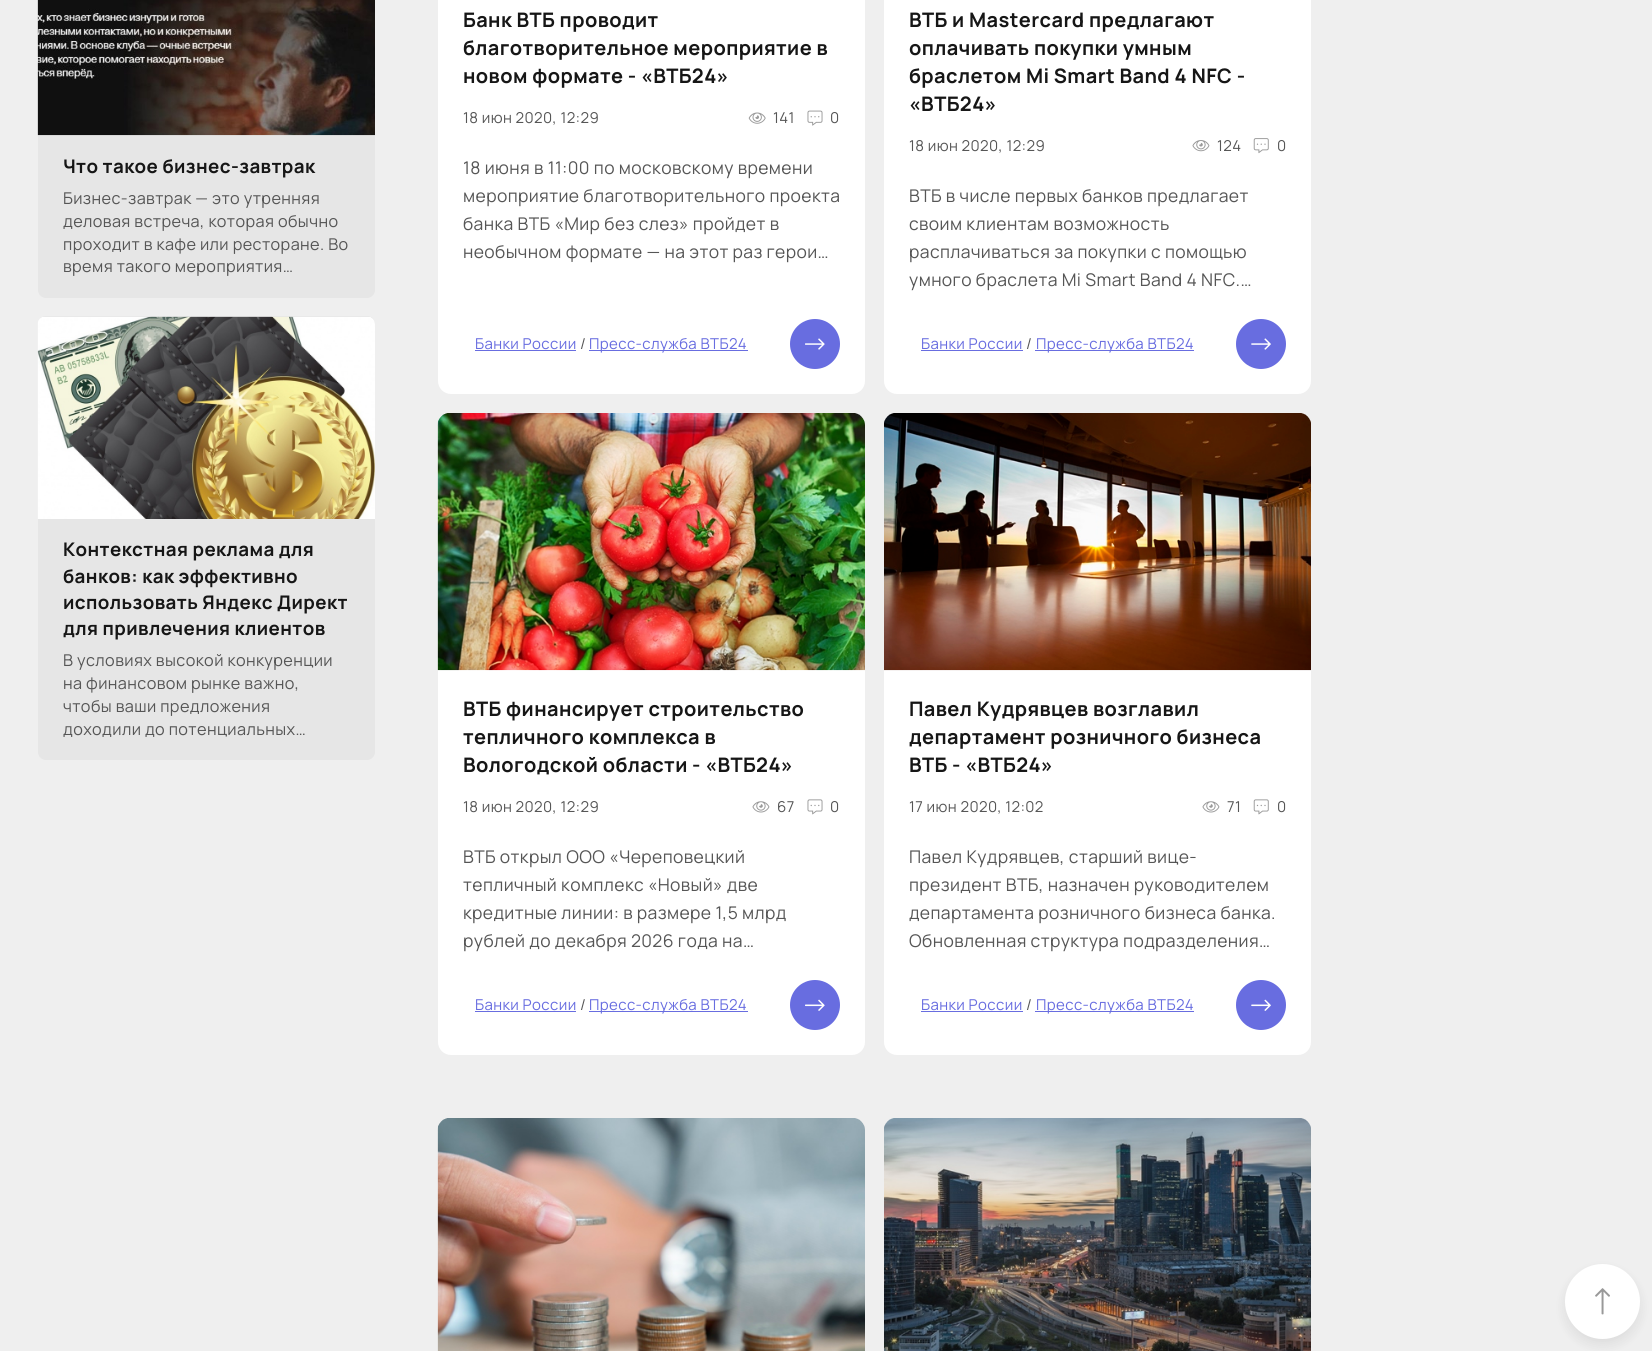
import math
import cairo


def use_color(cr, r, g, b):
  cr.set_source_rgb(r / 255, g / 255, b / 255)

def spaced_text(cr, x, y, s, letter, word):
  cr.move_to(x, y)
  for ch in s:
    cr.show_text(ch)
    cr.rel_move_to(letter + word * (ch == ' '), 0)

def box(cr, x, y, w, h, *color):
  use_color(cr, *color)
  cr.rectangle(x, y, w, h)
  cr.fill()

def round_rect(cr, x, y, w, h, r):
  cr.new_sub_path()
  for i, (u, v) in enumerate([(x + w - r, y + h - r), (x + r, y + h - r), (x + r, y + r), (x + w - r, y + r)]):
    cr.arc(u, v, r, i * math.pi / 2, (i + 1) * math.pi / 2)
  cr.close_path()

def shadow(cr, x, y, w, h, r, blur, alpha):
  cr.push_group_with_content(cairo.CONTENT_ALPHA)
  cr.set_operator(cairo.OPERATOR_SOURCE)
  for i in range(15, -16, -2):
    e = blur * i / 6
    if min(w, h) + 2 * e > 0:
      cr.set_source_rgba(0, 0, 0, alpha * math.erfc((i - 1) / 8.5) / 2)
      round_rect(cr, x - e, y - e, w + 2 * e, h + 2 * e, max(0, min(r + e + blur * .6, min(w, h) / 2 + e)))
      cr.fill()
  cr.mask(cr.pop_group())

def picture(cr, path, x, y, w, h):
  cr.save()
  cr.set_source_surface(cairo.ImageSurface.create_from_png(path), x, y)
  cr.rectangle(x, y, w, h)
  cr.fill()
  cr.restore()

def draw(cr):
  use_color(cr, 239, 239, 239)
  cr.paint()
  use_color(cr, 230, 230, 230)
  round_rect(cr, 38, -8, 337, 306, 8)
  cr.fill()
  picture(cr, "img_01.png", 37, 0, 338, 136)
  round_rect(cr, 38, 316, 337, 444, 8)
  cr.fill()
  picture(cr, "img_02.png", 37, 316, 338, 203)
  use_color(cr, 255, 255, 255)
  round_rect(cr, 438, -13, 427, 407, 13)
  cr.fill()
  picture(cr, "img_03.png", 748, 112, 18, 12)
  picture(cr, "img_04.png", 807, 110, 16, 16)
  box(cr, 475, 350, 101, 1, 104, 109, 224)
  box(cr, 589, 350, 159, 1, 104, 109, 224)
  cr.arc(815, 344, 25, 0, 2 * math.pi)
  cr.fill()
  picture(cr, "img_05.png", 805, 338, 20, 12)
  use_color(cr, 255, 255, 255)
  round_rect(cr, 884, -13, 427, 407, 13)
  cr.fill()
  picture(cr, "img_06.png", 1192, 140, 18, 12)
  picture(cr, "img_07.png", 1253, 138, 16, 16)
  box(cr, 921, 350, 102, 1, 104, 109, 224)
  box(cr, 1035, 350, 159, 1, 104, 109, 224)
  cr.arc(1261, 344, 25, 0, 2 * math.pi)
  cr.fill()
  picture(cr, "img_08.png", 1251, 338, 20, 12)
  use_color(cr, 255, 255, 255)
  round_rect(cr, 438, 413, 427, 642, 13)
  cr.fill()
  picture(cr, "img_09.png", 437, 413, 428, 258)
  picture(cr, "img_10.png", 752, 801, 18, 12)
  picture(cr, "img_11.png", 807, 799, 16, 16)
  box(cr, 475, 1011, 101, 1, 104, 109, 224)
  box(cr, 589, 1011, 159, 1, 104, 109, 224)
  cr.arc(815, 1005, 25, 0, 2 * math.pi)
  cr.fill()
  picture(cr, "img_12.png", 805, 999, 20, 12)
  use_color(cr, 255, 255, 255)
  round_rect(cr, 884, 413, 427, 642, 13)
  cr.fill()
  picture(cr, "img_13.png", 884, 413, 427, 258)
  picture(cr, "img_10.png", 1202, 801, 18, 12)
  picture(cr, "img_14.png", 1253, 799, 16, 16)
  box(cr, 921, 1011, 102, 1, 104, 109, 224)
  box(cr, 1035, 1011, 159, 1, 104, 109, 224)
  cr.arc(1261, 1005, 25, 0, 2 * math.pi)
  cr.fill()
  picture(cr, "img_15.png", 1251, 999, 20, 12)
  picture(cr, "img_16.png", 437, 1118, 428, 233)
  picture(cr, "img_17.png", 884, 1118, 427, 233)
  use_color(cr, 0, 0, 0)
  shadow(cr, 1565, 1270, 75, 75, 37.5, 6, 0.08)
  use_color(cr, 255, 255, 255)
  cr.arc(1602.5, 1301.5, 37.5, 0, 2 * math.pi)
  cr.fill()
  picture(cr, "img_18.png", 1595, 1288, 15, 27)
  cr.select_font_face("Manrope ExtraLight")
  cr.set_font_size(18.75)
  use_color(cr, 22, 22, 22)
  spaced_text(cr, 63, 173, "Что такое бизнес-завтрак", 0.4, 0)
  cr.select_font_face("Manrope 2 ExtraLight")
  cr.set_font_size(16.25)
  use_color(cr, 86, 86, 86)
  spaced_text(cr, 63, 204, "Бизнес-завтрак — это утренняя", 0.4, 0)
  spaced_text(cr, 63, 227, "деловая встреча, которая обычно", 0.4, 0)
  spaced_text(cr, 63, 250, "проходит в кафе или ресторане. Во", 0.4, 0)
  spaced_text(cr, 63, 272, "время такого мероприятия…", 0.4, 0)
  cr.select_font_face("Manrope ExtraLight")
  cr.set_font_size(18.75)
  use_color(cr, 22, 22, 22)
  spaced_text(cr, 63, 556, "Контекстная реклама для", 0.4, 0)
  spaced_text(cr, 63, 583, "банков: как эффективно", 0.4, 0)
  spaced_text(cr, 63, 609, "использовать Яндекс Директ", 0.4, 0)
  spaced_text(cr, 63, 635, "для привлечения клиентов", 0.4, 0)
  cr.select_font_face("Manrope 2 ExtraLight")
  cr.set_font_size(16.25)
  use_color(cr, 86, 86, 86)
  spaced_text(cr, 63, 666, "В условиях высокой конкуренции", 0.4, 0)
  spaced_text(cr, 63, 689, "на финансовом рынке важно,", 0.4, 0)
  spaced_text(cr, 63, 712, "чтобы ваши предложения", 0.4, 0)
  spaced_text(cr, 63, 735, "доходили до потенциальных…", 0.4, 0)
  cr.select_font_face("Manrope ExtraLight")
  cr.set_font_size(20)
  use_color(cr, 22, 22, 22)
  spaced_text(cr, 463, 27, "Банк ВТБ проводит", 0.4, 0)
  spaced_text(cr, 463, 55, "благотворительное мероприятие в", 0.4, 0)
  spaced_text(cr, 463, 83, "новом формате - «ВТБ24»", 0.4, 0)
  cr.select_font_face("Manrope 2 ExtraLight")
  cr.set_font_size(15)
  use_color(cr, 86, 86, 86)
  spaced_text(cr, 463, 123, "18 июн 2020, 12:29", 0.4, 0)
  spaced_text(cr, 773, 123, "141", 0.4, 0)
  spaced_text(cr, 830, 123, "0", 0.4, 0)
  cr.set_font_size(17.5)
  spaced_text(cr, 463, 174, "18 июня в 11:00 по московскому времени", 0.4, 0)
  spaced_text(cr, 463, 202, "мероприятие благотворительного проекта", 0.4, 0)
  spaced_text(cr, 463, 230, "банка ВТБ «Мир без слез» пройдет в", 0.4, 0)
  spaced_text(cr, 463, 258, "необычном формате — на этот раз герои…", 0.4, 0)
  cr.set_font_size(15)
  use_color(cr, 104, 109, 224)
  spaced_text(cr, 475, 349, "Банки России", 0.4, 0)
  use_color(cr, 86, 86, 86)
  spaced_text(cr, 580, 349, "/", 0.4, 0)
  use_color(cr, 104, 109, 224)
  spaced_text(cr, 589, 349, "Пресс-служба ВТБ24", 0.4, 0)
  cr.select_font_face("Manrope ExtraLight")
  cr.set_font_size(20)
  use_color(cr, 22, 22, 22)
  spaced_text(cr, 909, 27, "ВТБ и Mastercard предлагают", 0.4, 0)
  spaced_text(cr, 909, 55, "оплачивать покупки умным", 0.4, 0)
  spaced_text(cr, 909, 83, "браслетом Mi Smart Band 4 NFC -", 0.4, 0)
  spaced_text(cr, 909, 111, "«ВТБ24»", 0.4, 0)
  cr.select_font_face("Manrope 2 ExtraLight")
  cr.set_font_size(15)
  use_color(cr, 86, 86, 86)
  spaced_text(cr, 909, 151, "18 июн 2020, 12:29", 0.4, 0)
  spaced_text(cr, 1217, 151, "124", 0.4, 0)
  spaced_text(cr, 1277, 151, "0", 0.4, 0)
  cr.set_font_size(17.5)
  spaced_text(cr, 909, 202, "ВТБ в числе первых банков предлагает", 0.4, 0)
  spaced_text(cr, 909, 230, "своим клиентам возможность", 0.4, 0)
  spaced_text(cr, 909, 258, "расплачиваться за покупки с помощью", 0.4, 0)
  spaced_text(cr, 909, 286, "умного браслета Mi Smart Band 4 NFC.…", 0.4, 0)
  cr.set_font_size(15)
  use_color(cr, 104, 109, 224)
  spaced_text(cr, 921, 349, "Банки России", 0.4, 0)
  use_color(cr, 86, 86, 86)
  spaced_text(cr, 1026, 349, "/", 0.4, 0)
  use_color(cr, 104, 109, 224)
  spaced_text(cr, 1036, 349, "Пресс-служба ВТБ24", 0.4, 0)
  cr.select_font_face("Manrope ExtraLight")
  cr.set_font_size(20)
  use_color(cr, 22, 22, 22)
  spaced_text(cr, 463, 716, "ВТБ финансирует строительство", 0.4, 0)
  spaced_text(cr, 463, 744, "тепличного комплекса в", 0.4, 0)
  spaced_text(cr, 463, 772, "Вологодской области - «ВТБ24»", 0.4, 0)
  cr.select_font_face("Manrope 2 ExtraLight")
  cr.set_font_size(15)
  use_color(cr, 86, 86, 86)
  spaced_text(cr, 463, 812, "18 июн 2020, 12:29", 0.4, 0)
  spaced_text(cr, 777, 812, "67", 0.4, 0)
  spaced_text(cr, 830, 812, "0", 0.4, 0)
  cr.set_font_size(17.5)
  spaced_text(cr, 463, 863, "ВТБ открыл ООО «Череповецкий", 0.4, 0)
  spaced_text(cr, 463, 891, "тепличный комплекс «Новый» две", 0.4, 0)
  spaced_text(cr, 463, 919, "кредитные линии: в размере 1,5 млрд", 0.4, 0)
  spaced_text(cr, 463, 947, "рублей до декабря 2026 года на…", 0.4, 0)
  cr.set_font_size(15)
  use_color(cr, 104, 109, 224)
  spaced_text(cr, 475, 1010, "Банки России", 0.4, 0)
  use_color(cr, 86, 86, 86)
  spaced_text(cr, 580, 1010, "/", 0.4, 0)
  use_color(cr, 104, 109, 224)
  spaced_text(cr, 589, 1010, "Пресс-служба ВТБ24", 0.4, 0)
  cr.select_font_face("Manrope ExtraLight")
  cr.set_font_size(20)
  use_color(cr, 22, 22, 22)
  spaced_text(cr, 909, 716, "Павел Кудрявцев возглавил", 0.4, 0)
  spaced_text(cr, 909, 744, "департамент розничного бизнеса", 0.4, 0)
  spaced_text(cr, 909, 772, "ВТБ - «ВТБ24»", 0.4, 0)
  cr.select_font_face("Manrope 2 ExtraLight")
  cr.set_font_size(15)
  use_color(cr, 86, 86, 86)
  spaced_text(cr, 909, 812, "17 июн 2020, 12:02", 0.4, 0)
  spaced_text(cr, 1227, 812, "71", 0.4, 0)
  spaced_text(cr, 1277, 812, "0", 0.4, 0)
  cr.set_font_size(17.5)
  spaced_text(cr, 909, 863, "Павел Кудрявцев, старший вице-", 0.4, 0)
  spaced_text(cr, 909, 891, "президент ВТБ, назначен руководителем", 0.4, 0)
  spaced_text(cr, 909, 919, "департамента розничного бизнеса банка.", 0.4, 0)
  spaced_text(cr, 909, 947, "Обновленная структура подразделения…", 0.4, 0)
  cr.set_font_size(15)
  use_color(cr, 104, 109, 224)
  spaced_text(cr, 921, 1010, "Банки России", 0.4, 0)
  use_color(cr, 86, 86, 86)
  spaced_text(cr, 1026, 1010, "/", 0.4, 0)
  use_color(cr, 104, 109, 224)
  spaced_text(cr, 1036, 1010, "Пресс-служба ВТБ24", 0.4, 0)


surface = cairo.ImageSurface(cairo.FORMAT_RGB24, 1652, 1351)
cr = cairo.Context(surface)
options = cairo.FontOptions()
options.set_hint_metrics(cairo.HINT_METRICS_OFF)
options.set_hint_style(cairo.HINT_STYLE_NONE)
cr.set_font_options(options)
cr.set_miter_limit(4)
draw(cr)
surface.write_to_png("out.png")
